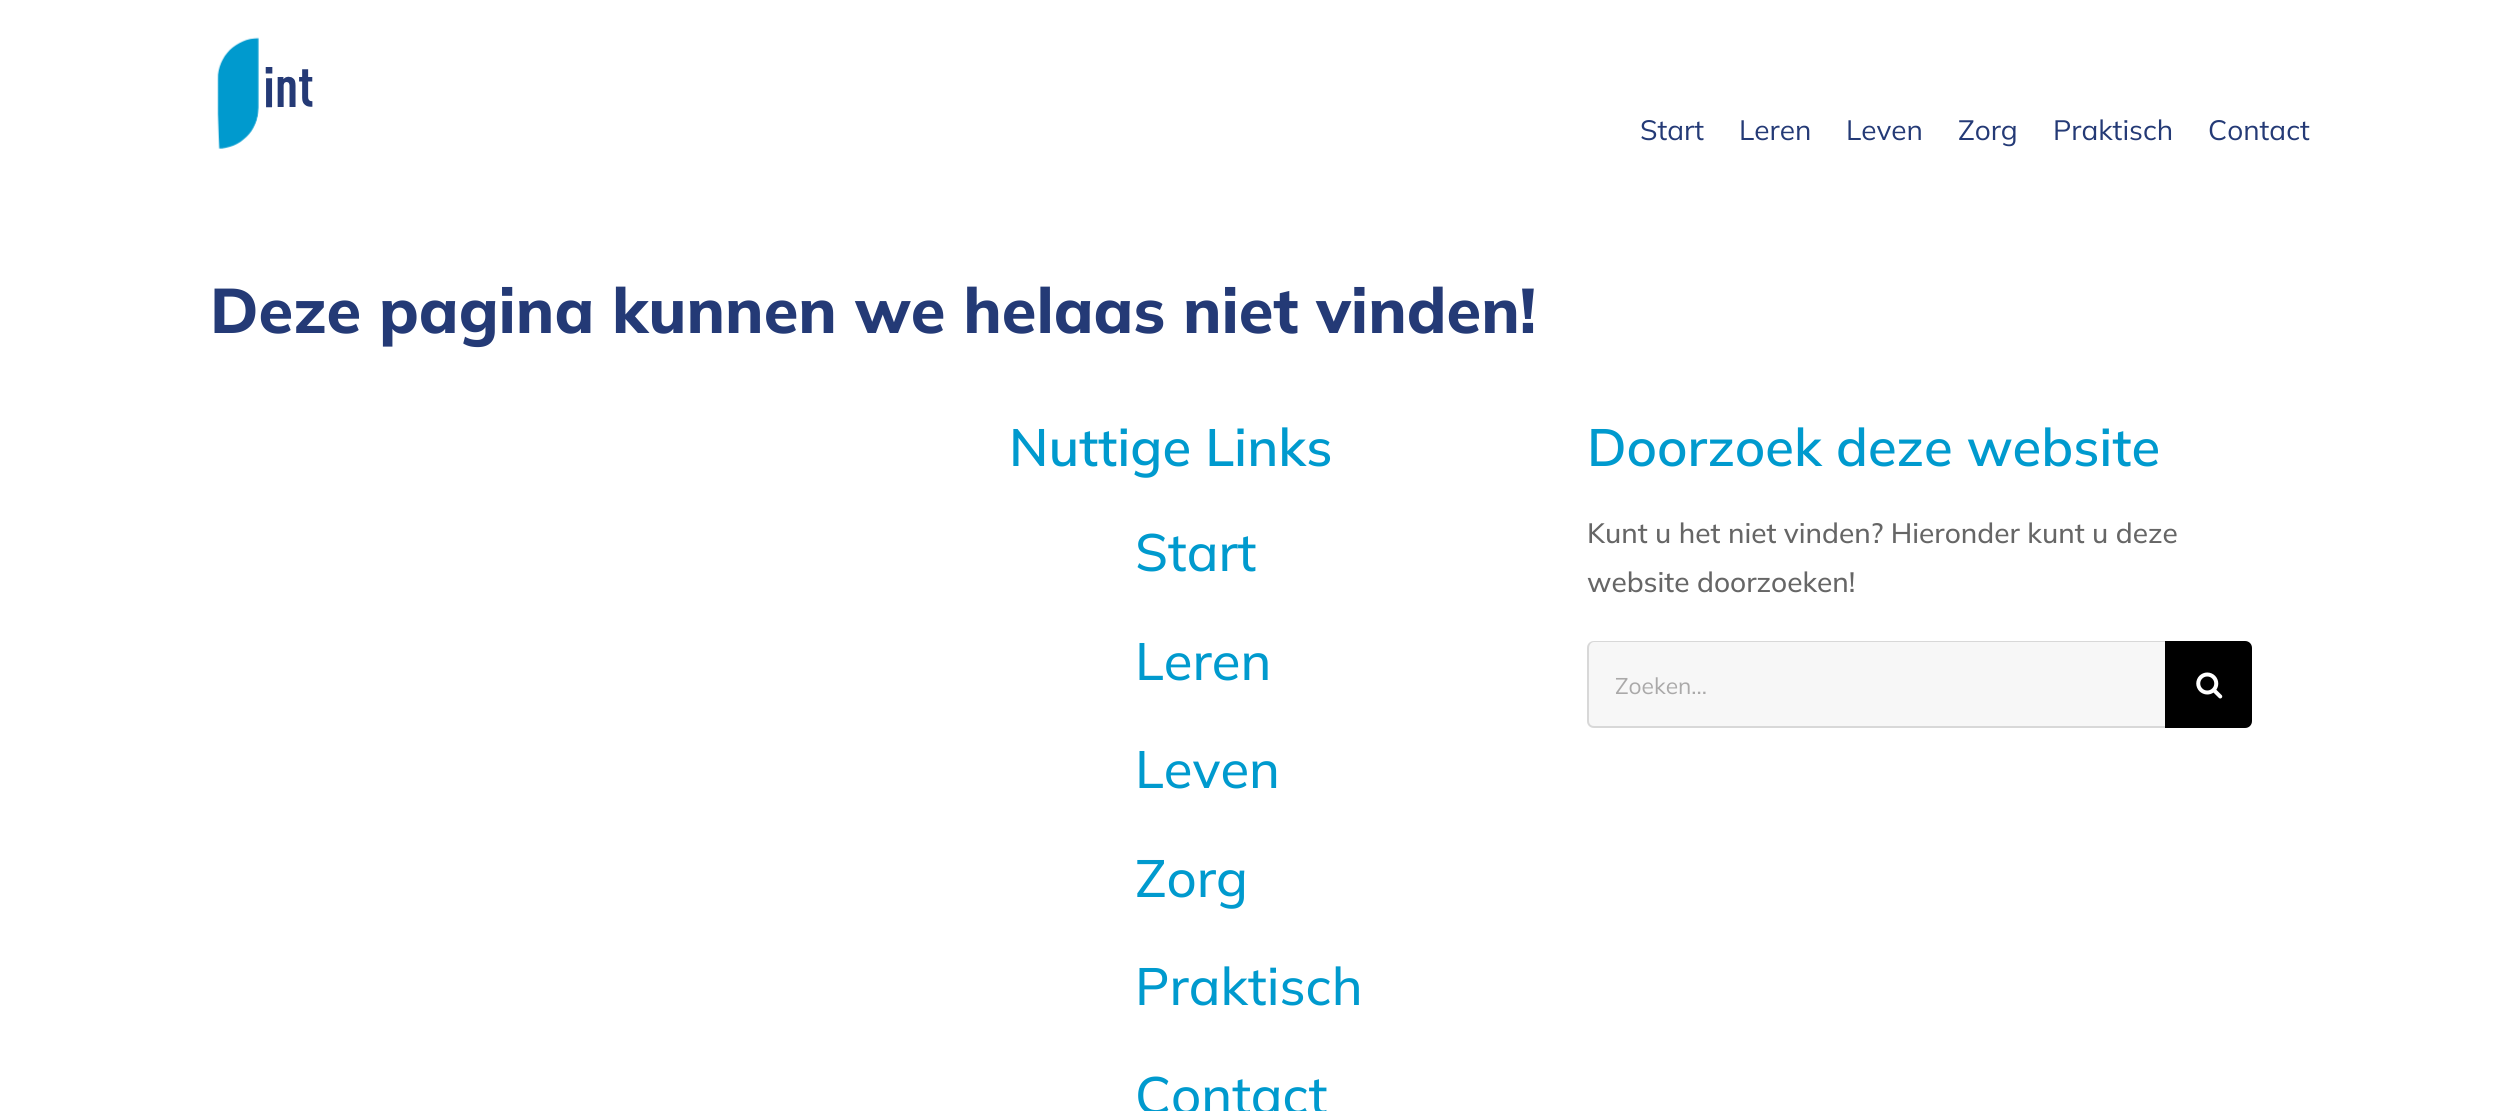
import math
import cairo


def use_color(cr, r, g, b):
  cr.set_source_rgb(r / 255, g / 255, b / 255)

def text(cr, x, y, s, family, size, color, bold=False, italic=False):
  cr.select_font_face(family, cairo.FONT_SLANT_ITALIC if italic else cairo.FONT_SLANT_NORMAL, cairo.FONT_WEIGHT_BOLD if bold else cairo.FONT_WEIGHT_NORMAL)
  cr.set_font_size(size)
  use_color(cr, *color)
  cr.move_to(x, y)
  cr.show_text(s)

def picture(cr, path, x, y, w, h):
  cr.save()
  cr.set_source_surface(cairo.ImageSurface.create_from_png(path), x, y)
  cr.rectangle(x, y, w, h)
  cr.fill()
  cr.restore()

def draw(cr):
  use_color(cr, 255, 255, 255)
  cr.paint()
  picture(cr, "img_01.png", 217, 37, 96, 112)
  use_color(cr, 247, 247, 247)
  cr.new_path()
  cr.move_to(1594, 641)
  cr.line_to(2165, 641)
  cr.line_to(2165, 728)
  cr.line_to(1594, 728)
  cr.curve_to(1590, 728, 1587, 725, 1587, 721)
  cr.line_to(1587, 648)
  cr.curve_to(1587, 644, 1590, 641, 1594, 641)
  cr.close_path()
  cr.fill()
  use_color(cr, 216, 216, 216)
  cr.new_path()
  cr.move_to(1594, 642)
  cr.line_to(2165, 642)
  cr.line_to(2165, 641)
  cr.line_to(1594, 641)
  cr.curve_to(1590, 641, 1587, 644, 1587, 648)
  cr.line_to(1587, 721)
  cr.curve_to(1587, 725, 1590, 728, 1594, 728)
  cr.line_to(2165, 728)
  cr.line_to(2165, 726)
  cr.line_to(1594, 726)
  cr.curve_to(1591, 726, 1589, 724, 1589, 721)
  cr.line_to(1589, 648)
  cr.curve_to(1589, 645, 1591, 642, 1594, 642)
  cr.close_path()
  cr.fill()
  use_color(cr, 0, 0, 0)
  cr.new_path()
  cr.move_to(2165, 641)
  cr.line_to(2245, 641)
  cr.curve_to(2249, 641, 2252, 644, 2252, 648)
  cr.line_to(2252, 721)
  cr.curve_to(2252, 725, 2249, 728, 2245, 728)
  cr.line_to(2165, 728)
  cr.close_path()
  cr.fill()
  picture(cr, "img_02.png", 2196, 672, 27, 27)
  text(cr, 1640, 140, "Start", "Mulish", 28, (36, 58, 118))
  text(cr, 1739, 140, "Leren", "Mulish", 28, (36, 58, 118))
  text(cr, 1846, 140, "Leven", "Mulish", 28, (36, 58, 118))
  text(cr, 1958, 140, "Zorg", "Mulish", 28, (36, 58, 118))
  text(cr, 2053, 140, "Praktisch", "Mulish", 28, (36, 58, 118))
  text(cr, 2208, 140, "Contact", "Mulish", 28, (36, 58, 118))
  text(cr, 210, 333, "Deze pagina kunnen we helaas niet vinden!", "Mulish ExtraBold", 63, (36, 58, 118))
  text(cr, 1009, 466, "Nuttige Links", "Mulish SemiBold", 52.5, (0, 154, 206))
  text(cr, 1135, 571, "Start", "Mulish Medium", 52.5, (0, 154, 206))
  text(cr, 1135, 680, "Leren", "Mulish Medium", 52.5, (0, 154, 206))
  text(cr, 1135, 788, "Leven", "Mulish Medium", 52.5, (0, 154, 206))
  text(cr, 1135, 897, "Zorg", "Mulish Medium", 52.5, (0, 154, 206))
  text(cr, 1135, 1005, "Praktisch", "Mulish Medium", 52.5, (0, 154, 206))
  text(cr, 1135, 1114, "Contact", "Mulish Medium", 52.5, (0, 154, 206))
  text(cr, 1587, 466, "Doorzoek deze website", "Mulish SemiBold", 52.5, (0, 154, 206))
  text(cr, 1587, 543, "Kunt u het niet vinden? Hieronder kunt u deze", "Mulish Medium", 28, (102, 102, 102))
  text(cr, 1587, 592, "website doorzoeken!", "Mulish Medium", 28, (102, 102, 102))
  text(cr, 1615, 694, "Zoeken...", "Mulish", 22.75, (170, 169, 169))


surface = cairo.ImageSurface(cairo.FORMAT_RGB24, 2520, 1111)
cr = cairo.Context(surface)
options = cairo.FontOptions()
options.set_hint_metrics(cairo.HINT_METRICS_OFF)
options.set_hint_style(cairo.HINT_STYLE_NONE)
cr.set_font_options(options)
cr.set_miter_limit(4)
draw(cr)
surface.write_to_png("out.png")
